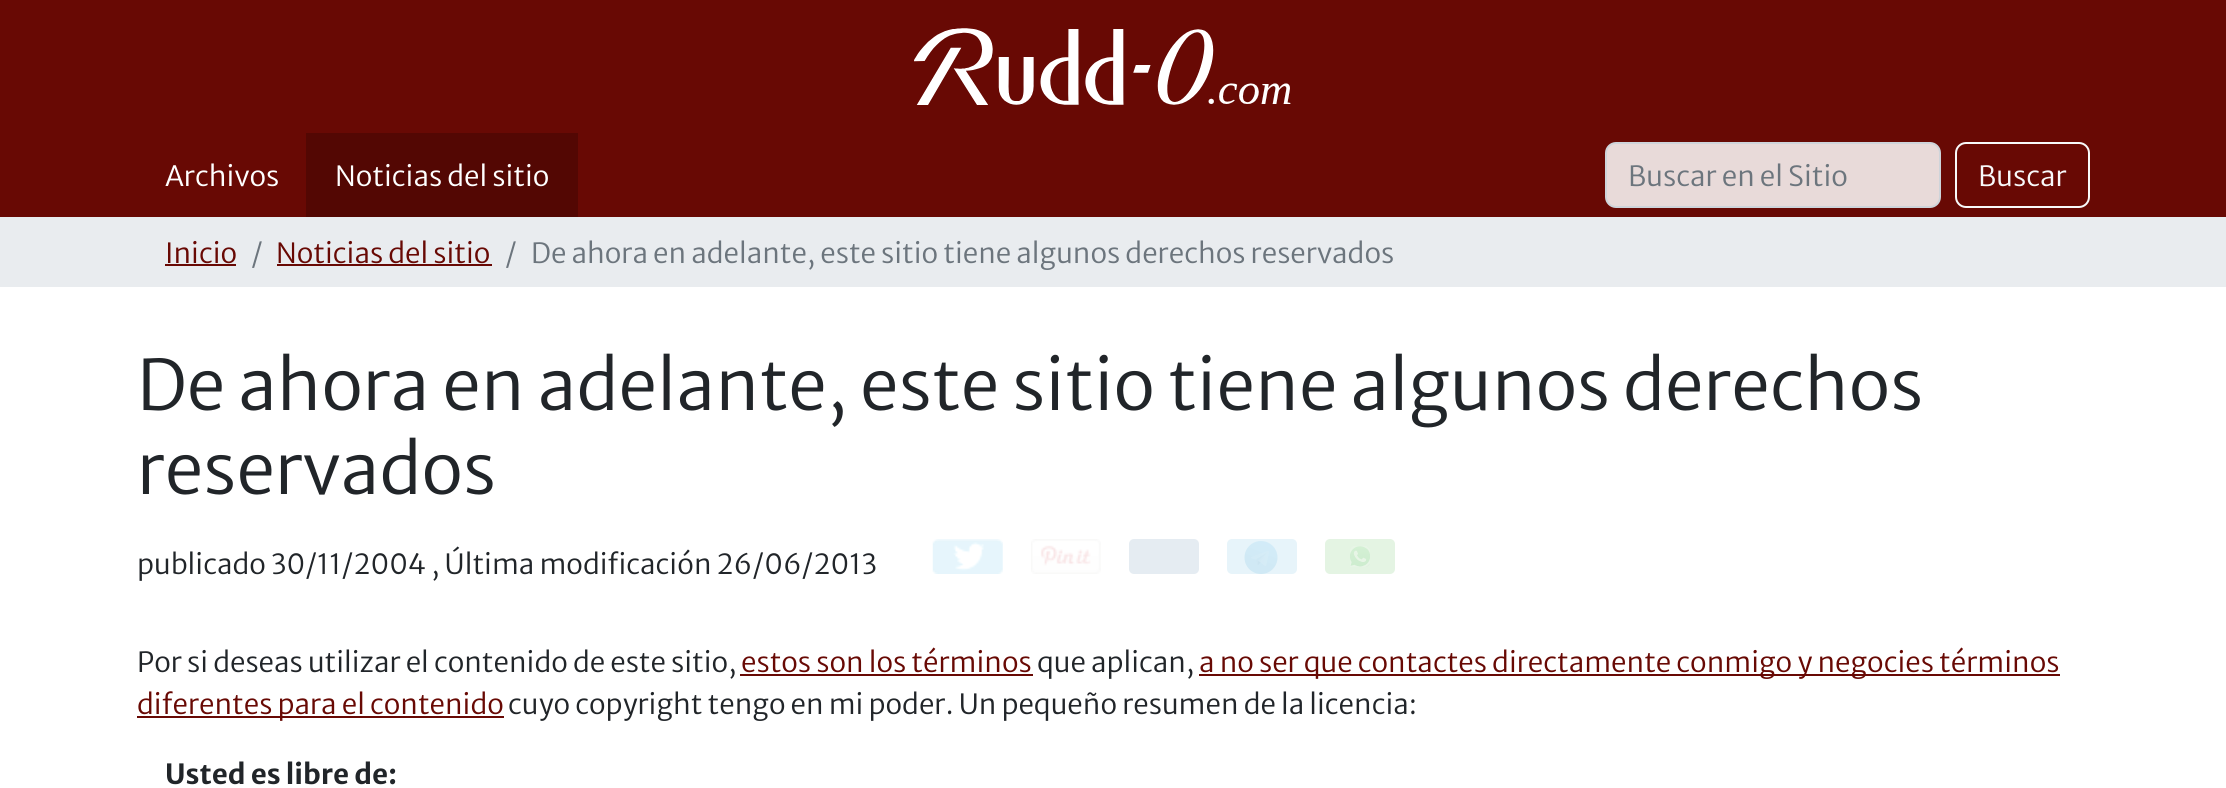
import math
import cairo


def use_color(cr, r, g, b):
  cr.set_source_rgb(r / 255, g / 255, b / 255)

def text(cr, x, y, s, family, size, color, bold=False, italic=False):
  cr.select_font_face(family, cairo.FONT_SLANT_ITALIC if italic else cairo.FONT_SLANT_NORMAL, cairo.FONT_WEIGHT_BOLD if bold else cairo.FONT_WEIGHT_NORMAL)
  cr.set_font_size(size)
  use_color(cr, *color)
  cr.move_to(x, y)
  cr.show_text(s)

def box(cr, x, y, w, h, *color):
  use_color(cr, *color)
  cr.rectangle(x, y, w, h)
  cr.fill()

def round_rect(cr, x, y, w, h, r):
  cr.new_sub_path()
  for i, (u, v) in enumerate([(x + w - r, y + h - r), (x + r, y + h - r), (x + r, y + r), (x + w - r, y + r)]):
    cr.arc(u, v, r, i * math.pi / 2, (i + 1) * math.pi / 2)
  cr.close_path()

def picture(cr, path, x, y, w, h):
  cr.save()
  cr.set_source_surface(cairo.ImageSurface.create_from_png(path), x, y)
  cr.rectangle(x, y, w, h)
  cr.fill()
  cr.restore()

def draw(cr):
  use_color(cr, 255, 255, 255)
  cr.paint()
  box(cr, 0, 0, 2226, 217, 104, 9, 4)
  picture(cr, "img_01.png", 914, 28, 377, 77)
  box(cr, 306, 133, 272, 84, 83, 7, 3)
  use_color(cr, 232, 218, 217)
  round_rect(cr, 1606, 143, 334, 64, 10)
  cr.fill_preserve()
  use_color(cr, 206, 212, 218)
  cr.stroke()
  round_rect(cr, 1956, 143, 133, 64, 10)
  use_color(cr, 248, 249, 250)
  cr.stroke()
  box(cr, 0, 217, 2226, 70, 233, 236, 239)
  box(cr, 165, 264, 71, 2, 104, 9, 4)
  box(cr, 277, 264, 215, 2, 104, 9, 4)
  picture(cr, "img_02.png", 932, 539, 71, 35)
  picture(cr, "img_03.png", 1031, 539, 70, 35)
  use_color(cr, 229, 236, 242)
  round_rect(cr, 1129, 539, 70, 35, 5)
  cr.fill()
  use_color(cr, 231, 244, 250)
  round_rect(cr, 1227, 539, 70, 35, 5)
  cr.fill()
  picture(cr, "img_04.png", 1244, 541, 34, 33)
  use_color(cr, 228, 244, 227)
  round_rect(cr, 1325, 539, 70, 35, 5)
  cr.fill()
  picture(cr, "img_05.png", 1350, 546, 20, 21)
  box(cr, 740, 674, 293, 2, 104, 9, 4)
  box(cr, 1199, 674, 861, 2, 104, 9, 4)
  box(cr, 137, 716, 367, 2, 104, 9, 4)
  text(cr, 165, 186, "Archivos", "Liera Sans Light", 28, (255, 255, 255))
  text(cr, 335, 186, "Noticias del sitio", "Liera Sans Light", 28, (255, 255, 255))
  text(cr, 1628, 186, "Buscar en el Sitio", "Liera Sans Light", 28, (108, 117, 125))
  text(cr, 1978, 186, "Buscar", "Liera Sans Light", 28, (248, 249, 250))
  text(cr, 165, 263, "Inicio", "Liera Sans Light", 28, (104, 9, 4))
  text(cr, 251, 263, "/", "Liera Sans Light", 28, (108, 117, 125))
  text(cr, 276, 263, "Noticias del sitio", "Liera Sans Light", 28, (104, 9, 4))
  text(cr, 505, 263, "/", "Liera Sans Light", 28, (108, 117, 125))
  text(cr, 531, 263, "De ahora en adelante, este sitio tiene algunos derechos reservados", "Liera Sans Light", 28, (108, 117, 125))
  text(cr, 137, 410, "De ahora en adelante, este sitio tiene algunos derechos", "Liera Sans Light", 70, (33, 37, 41))
  text(cr, 137, 494, "reservados", "Liera Sans Light", 70, (33, 37, 41))
  text(cr, 137, 574, "publicado 30/11/2004 , Última modificación 26/06/2013", "Liera Sans Light", 28, (33, 37, 41))
  text(cr, 137, 672, "Por si deseas utilizar el contenido de este sitio,", "Liera Sans Light", 28, (33, 37, 41))
  text(cr, 741, 672, "estos son los términos", "Liera Sans Light", 28, (104, 9, 4))
  text(cr, 1037, 672, "que aplican,", "Liera Sans Light", 28, (33, 37, 41))
  text(cr, 1199, 672, "a no ser que contactes directamente conmigo y negocies términos", "Liera Sans Light", 28, (104, 9, 4))
  text(cr, 137, 714, "diferentes para el contenido", "Liera Sans Light", 28, (104, 9, 4))
  text(cr, 508, 714, "cuyo copyright tengo en mi poder. Un pequeño resumen de la licencia:", "Liera Sans Light", 28, (33, 37, 41))
  text(cr, 165, 784, "Usted es libre de:", "Liera Sans", 28, (33, 37, 41), bold=True)


surface = cairo.ImageSurface(cairo.FORMAT_RGB24, 2226, 788)
cr = cairo.Context(surface)
options = cairo.FontOptions()
options.set_hint_metrics(cairo.HINT_METRICS_OFF)
options.set_hint_style(cairo.HINT_STYLE_NONE)
cr.set_font_options(options)
cr.set_miter_limit(4)
draw(cr)
surface.write_to_png("out.png")
